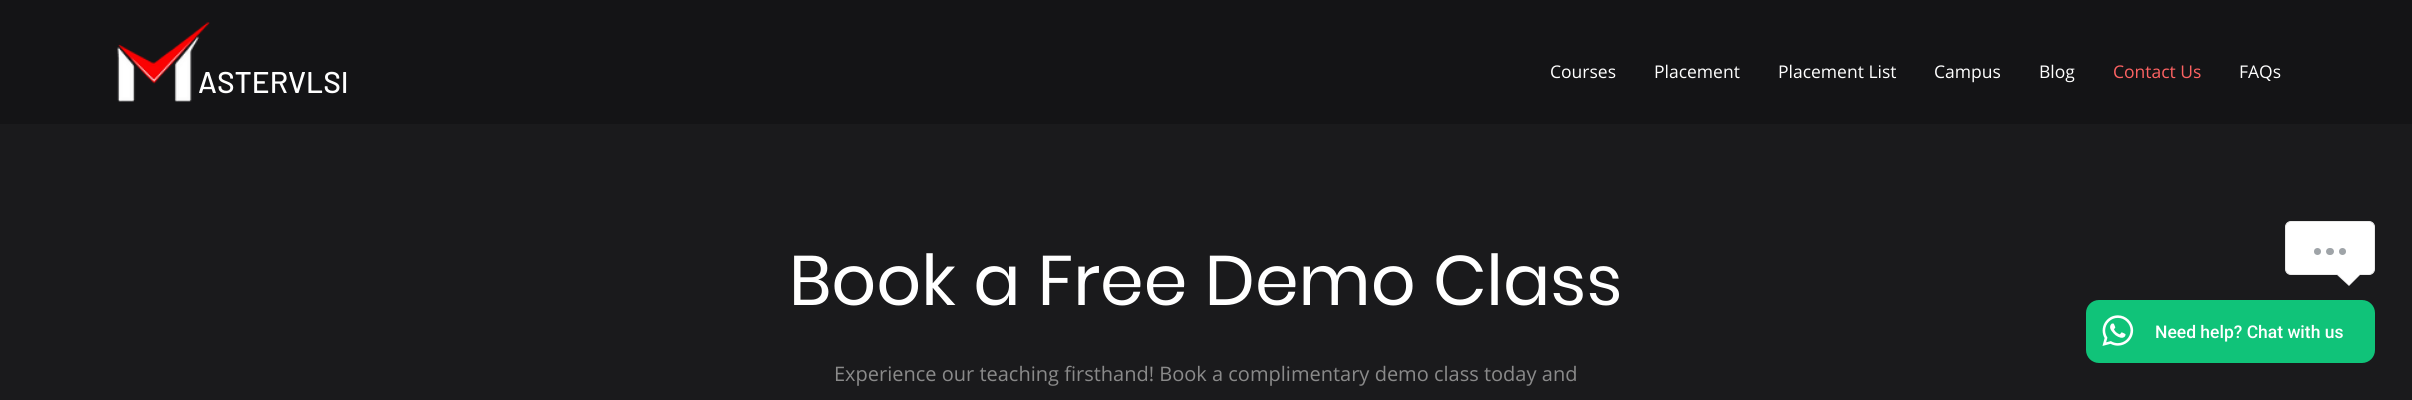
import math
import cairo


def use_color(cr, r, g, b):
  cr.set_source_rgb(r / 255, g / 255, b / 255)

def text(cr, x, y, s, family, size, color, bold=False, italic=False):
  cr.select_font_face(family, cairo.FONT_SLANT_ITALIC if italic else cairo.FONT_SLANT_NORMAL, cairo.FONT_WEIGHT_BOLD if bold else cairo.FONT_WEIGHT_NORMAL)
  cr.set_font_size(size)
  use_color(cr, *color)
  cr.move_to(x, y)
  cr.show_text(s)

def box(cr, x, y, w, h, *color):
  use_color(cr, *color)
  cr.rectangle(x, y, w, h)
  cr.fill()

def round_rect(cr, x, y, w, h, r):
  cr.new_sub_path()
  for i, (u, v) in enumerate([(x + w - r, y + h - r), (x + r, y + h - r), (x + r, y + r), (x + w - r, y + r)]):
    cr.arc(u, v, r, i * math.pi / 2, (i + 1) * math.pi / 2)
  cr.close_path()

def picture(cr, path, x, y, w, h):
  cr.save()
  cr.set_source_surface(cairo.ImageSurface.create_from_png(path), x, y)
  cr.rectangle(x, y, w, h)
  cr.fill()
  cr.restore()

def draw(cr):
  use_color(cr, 20, 20, 22)
  cr.paint()
  box(cr, 0, 124, 2412, 276, 26, 26, 28)
  use_color(cr, 255, 255, 255)
  round_rect(cr, 2285.5, 221.5, 89, 53, 5.5)
  cr.fill_preserve()
  use_color(cr, 233, 233, 233)
  cr.set_line_width(1)
  cr.stroke()
  use_color(cr, 159, 164, 168)
  cr.arc(2317.5, 251.5, 3.5, 0, 2 * math.pi)
  cr.fill()
  round_rect(cr, 2326, 248, 8, 7, 3.5)
  cr.fill()
  cr.arc(2342.5, 251.5, 3.5, 0, 2 * math.pi)
  cr.fill()
  use_color(cr, 233, 233, 233)
  cr.new_path()
  cr.move_to(2336, 274)
  cr.line_to(2361, 274)
  cr.line_to(2349, 286)
  cr.close_path()
  cr.fill()
  use_color(cr, 255, 255, 255)
  cr.new_path()
  cr.move_to(2337.5, 274)
  cr.line_to(2360, 274)
  cr.line_to(2349, 285)
  cr.close_path()
  cr.fill()
  use_color(cr, 16, 195, 121)
  round_rect(cr, 2086, 300, 289, 63, 13)
  cr.fill()
  picture(cr, "img_02.png", 2102, 315, 32, 31)
  text(cr, 198, 93, "ASTERVLSI", "Barlow Medium", 30, (255, 255, 255))
  picture(cr, "img_01.png", 117, 22, 93, 80)
  text(cr, 1550, 78, "Courses", "Open Sans", 17.5, (255, 255, 255))
  text(cr, 1654, 78, "Placement", "Open Sans", 17.5, (255, 255, 255))
  text(cr, 1778, 78, "Placement List", "Open Sans", 17.5, (255, 255, 255))
  text(cr, 1934, 78, "Campus", "Open Sans", 17.5, (255, 255, 255))
  text(cr, 2039, 78, "Blog", "Open Sans", 17.5, (255, 255, 255))
  text(cr, 2113, 78, "Contact Us", "Open Sans", 17.5, (253, 98, 98))
  text(cr, 2239, 78, "FAQs", "Open Sans", 17.5, (255, 255, 255))
  text(cr, 789, 305, "Book a Free Demo Class", "Poppins", 70, (255, 255, 255))
  text(cr, 834, 381, "Experience our teaching firsthand! Book a complimentary demo class today and", "Open Sans", 20, (138, 138, 138))
  text(cr, 2155, 338, "Need help? Chat with us", "Roboto Medium", 17.5, (255, 255, 255))


surface = cairo.ImageSurface(cairo.FORMAT_RGB24, 2412, 400)
cr = cairo.Context(surface)
options = cairo.FontOptions()
options.set_hint_metrics(cairo.HINT_METRICS_OFF)
options.set_hint_style(cairo.HINT_STYLE_NONE)
cr.set_font_options(options)
cr.set_miter_limit(4)
draw(cr)
surface.write_to_png("out.png")
